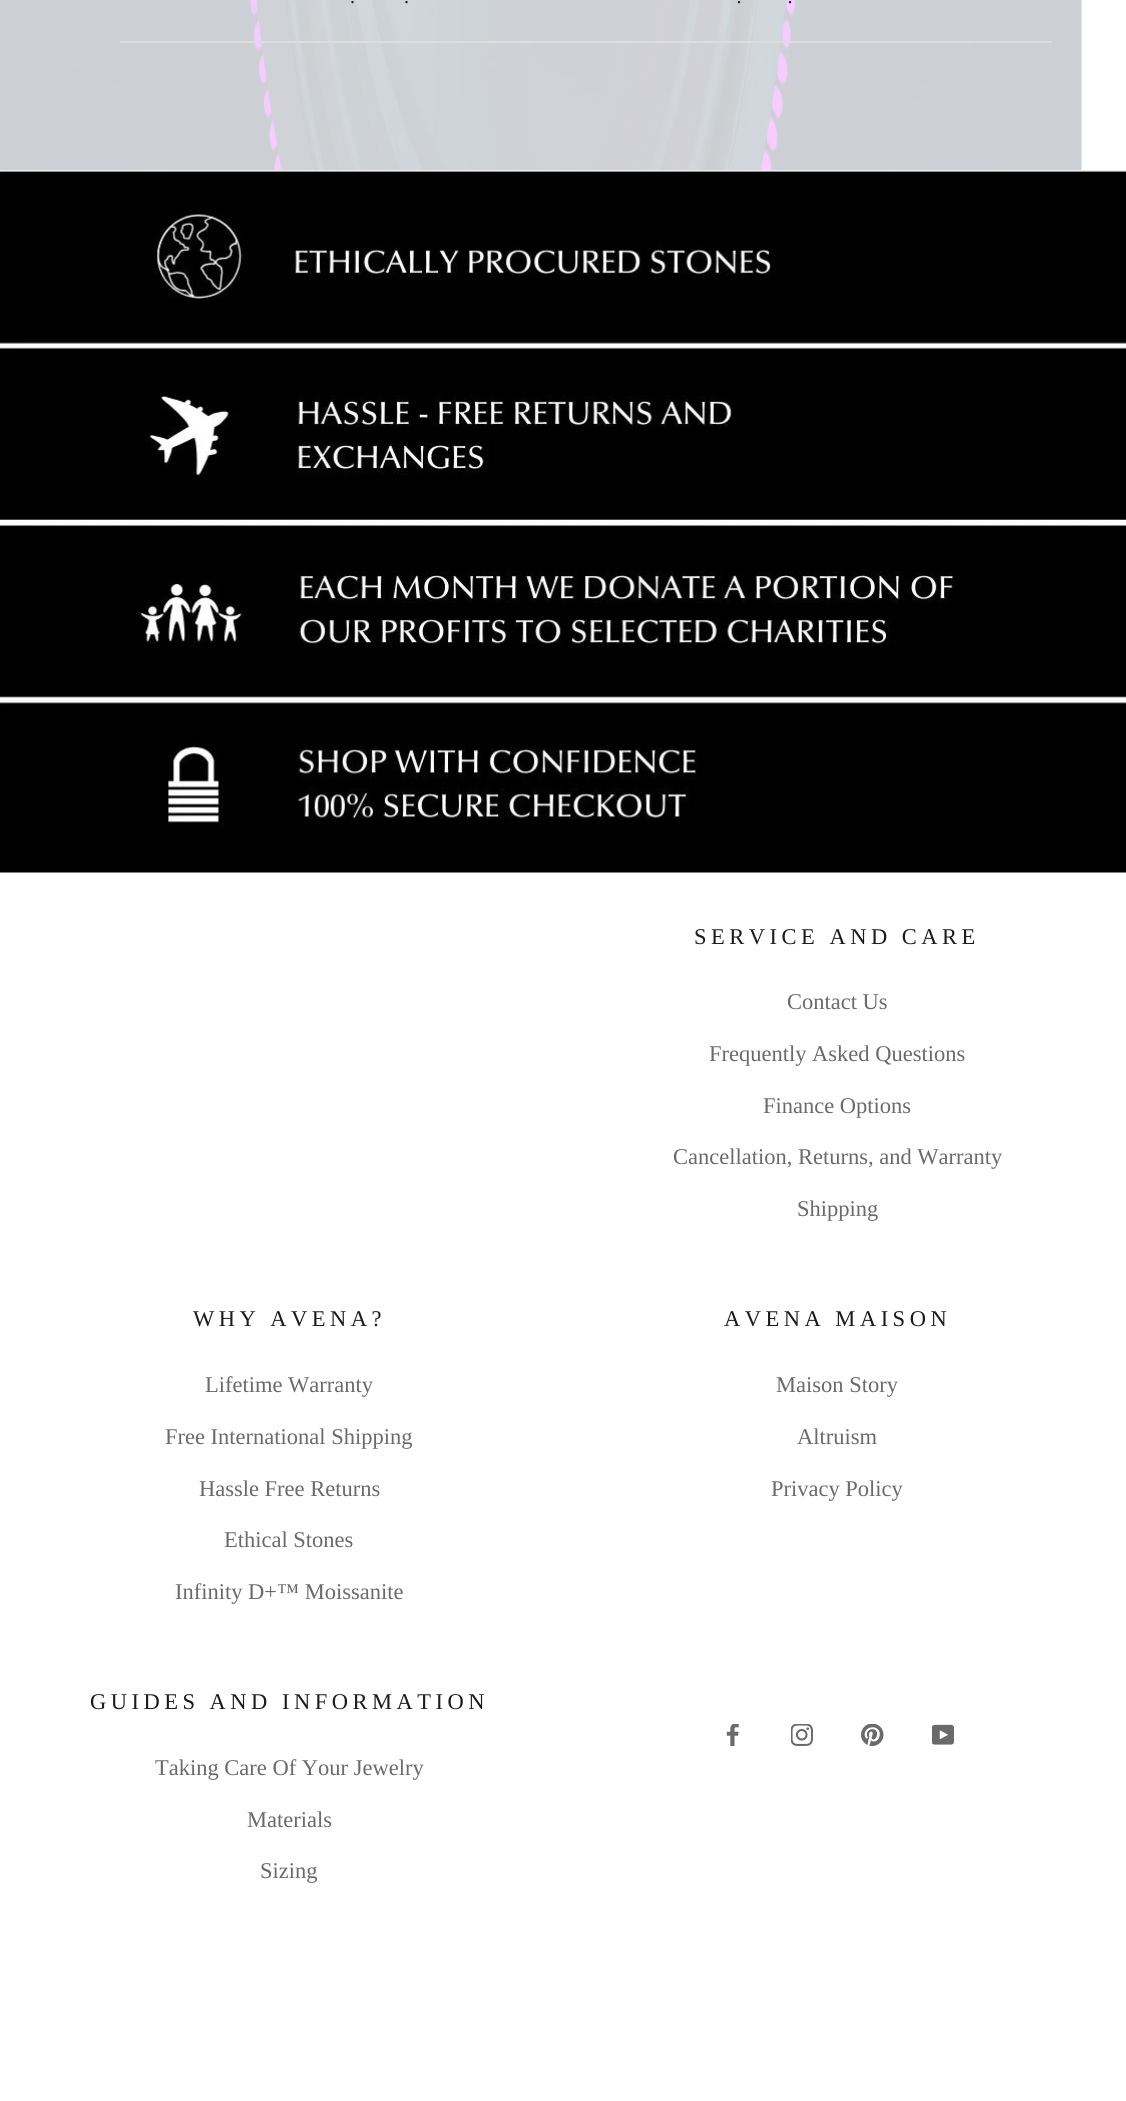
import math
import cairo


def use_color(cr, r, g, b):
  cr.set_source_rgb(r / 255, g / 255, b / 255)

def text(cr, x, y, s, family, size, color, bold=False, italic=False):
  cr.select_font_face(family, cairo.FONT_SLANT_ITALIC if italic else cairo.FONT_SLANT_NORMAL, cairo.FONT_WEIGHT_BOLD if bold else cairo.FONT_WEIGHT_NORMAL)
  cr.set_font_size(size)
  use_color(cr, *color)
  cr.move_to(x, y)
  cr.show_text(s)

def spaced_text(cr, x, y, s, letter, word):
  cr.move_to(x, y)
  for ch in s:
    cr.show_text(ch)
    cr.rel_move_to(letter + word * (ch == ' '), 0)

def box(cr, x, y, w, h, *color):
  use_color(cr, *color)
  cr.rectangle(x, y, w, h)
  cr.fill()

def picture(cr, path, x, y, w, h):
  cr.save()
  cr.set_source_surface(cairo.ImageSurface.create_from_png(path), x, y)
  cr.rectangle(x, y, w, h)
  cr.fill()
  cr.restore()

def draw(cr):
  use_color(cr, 255, 255, 255)
  cr.paint()
  picture(cr, "img_01.png", 0, 0, 1082, 170)
  box(cr, 120, 41, 932, 2, 221, 221, 221)
  box(cr, 0, 170, 1126, 1, 221, 221, 221)
  picture(cr, "img_02.png", 0, 170, 1126, 703)
  picture(cr, "img_03.png", 726, 1724, 13, 22)
  picture(cr, "img_04.png", 791, 1724, 22, 22)
  picture(cr, "img_05.png", 861, 1724, 23, 22)
  picture(cr, "img_06.png", 932, 1724, 22, 21)
  text(cr, 350, 3, ".", "Liberation Serif", 20, (28, 27, 27))
  text(cr, 404, 3, ".", "Liberation Serif", 20, (28, 27, 27))
  text(cr, 737, 3, ".", "Liberation Serif", 20, (28, 27, 27), italic=True)
  text(cr, 788, 3, ".", "Liberation Serif", 20, (28, 27, 27), italic=True)
  cr.select_font_face("Liberation Serif")
  cr.set_font_size(22.5)
  spaced_text(cr, 694, 944, "SERVICE AND CARE", 4.5, 0)
  text(cr, 787, 1009, "Contact Us", "Liberation Serif", 22.5, (106, 106, 106))
  text(cr, 709, 1061, "Frequently Asked Questions", "Liberation Serif", 22.5, (106, 106, 106))
  text(cr, 763, 1113, "Finance Options", "Liberation Serif", 22.5, (106, 106, 106))
  text(cr, 673, 1164, "Cancellation, Returns, and Warranty", "Liberation Serif", 22.5, (106, 106, 106))
  text(cr, 797, 1216, "Shipping", "Liberation Serif", 22.5, (106, 106, 106))
  use_color(cr, 28, 27, 27)
  spaced_text(cr, 193, 1326, "WHY AVENA?", 4.5, 0)
  text(cr, 205, 1392, "Lifetime Warranty", "Liberation Serif", 22.5, (106, 106, 106))
  text(cr, 165, 1444, "Free International Shipping", "Liberation Serif", 22.5, (106, 106, 106))
  text(cr, 199, 1496, "Hassle Free Returns", "Liberation Serif", 22.5, (106, 106, 106))
  text(cr, 224, 1547, "Ethical Stones", "Liberation Serif", 22.5, (106, 106, 106))
  text(cr, 175, 1599, "Infinity D+™ Moissanite", "Liberation Serif", 22.5, (106, 106, 106))
  use_color(cr, 28, 27, 27)
  spaced_text(cr, 724, 1326, "AVENA MAISON", 4.5, 0)
  text(cr, 776, 1392, "Maison Story", "Liberation Serif", 22.5, (106, 106, 106))
  text(cr, 797, 1444, "Altruism", "Liberation Serif", 22.5, (106, 106, 106))
  text(cr, 771, 1496, "Privacy Policy", "Liberation Serif", 22.5, (106, 106, 106))
  use_color(cr, 28, 27, 27)
  spaced_text(cr, 90, 1709, "GUIDES AND INFORMATION", 4.5, 0)
  text(cr, 155, 1775, "Taking Care Of Your Jewelry", "Liberation Serif", 22.5, (106, 106, 106))
  text(cr, 247, 1827, "Materials", "Liberation Serif", 22.5, (106, 106, 106))
  text(cr, 260, 1878, "Sizing", "Liberation Serif", 22.5, (106, 106, 106))


surface = cairo.ImageSurface(cairo.FORMAT_RGB24, 1126, 2101)
cr = cairo.Context(surface)
options = cairo.FontOptions()
options.set_hint_metrics(cairo.HINT_METRICS_OFF)
options.set_hint_style(cairo.HINT_STYLE_NONE)
cr.set_font_options(options)
cr.set_miter_limit(4)
draw(cr)
surface.write_to_png("out.png")
